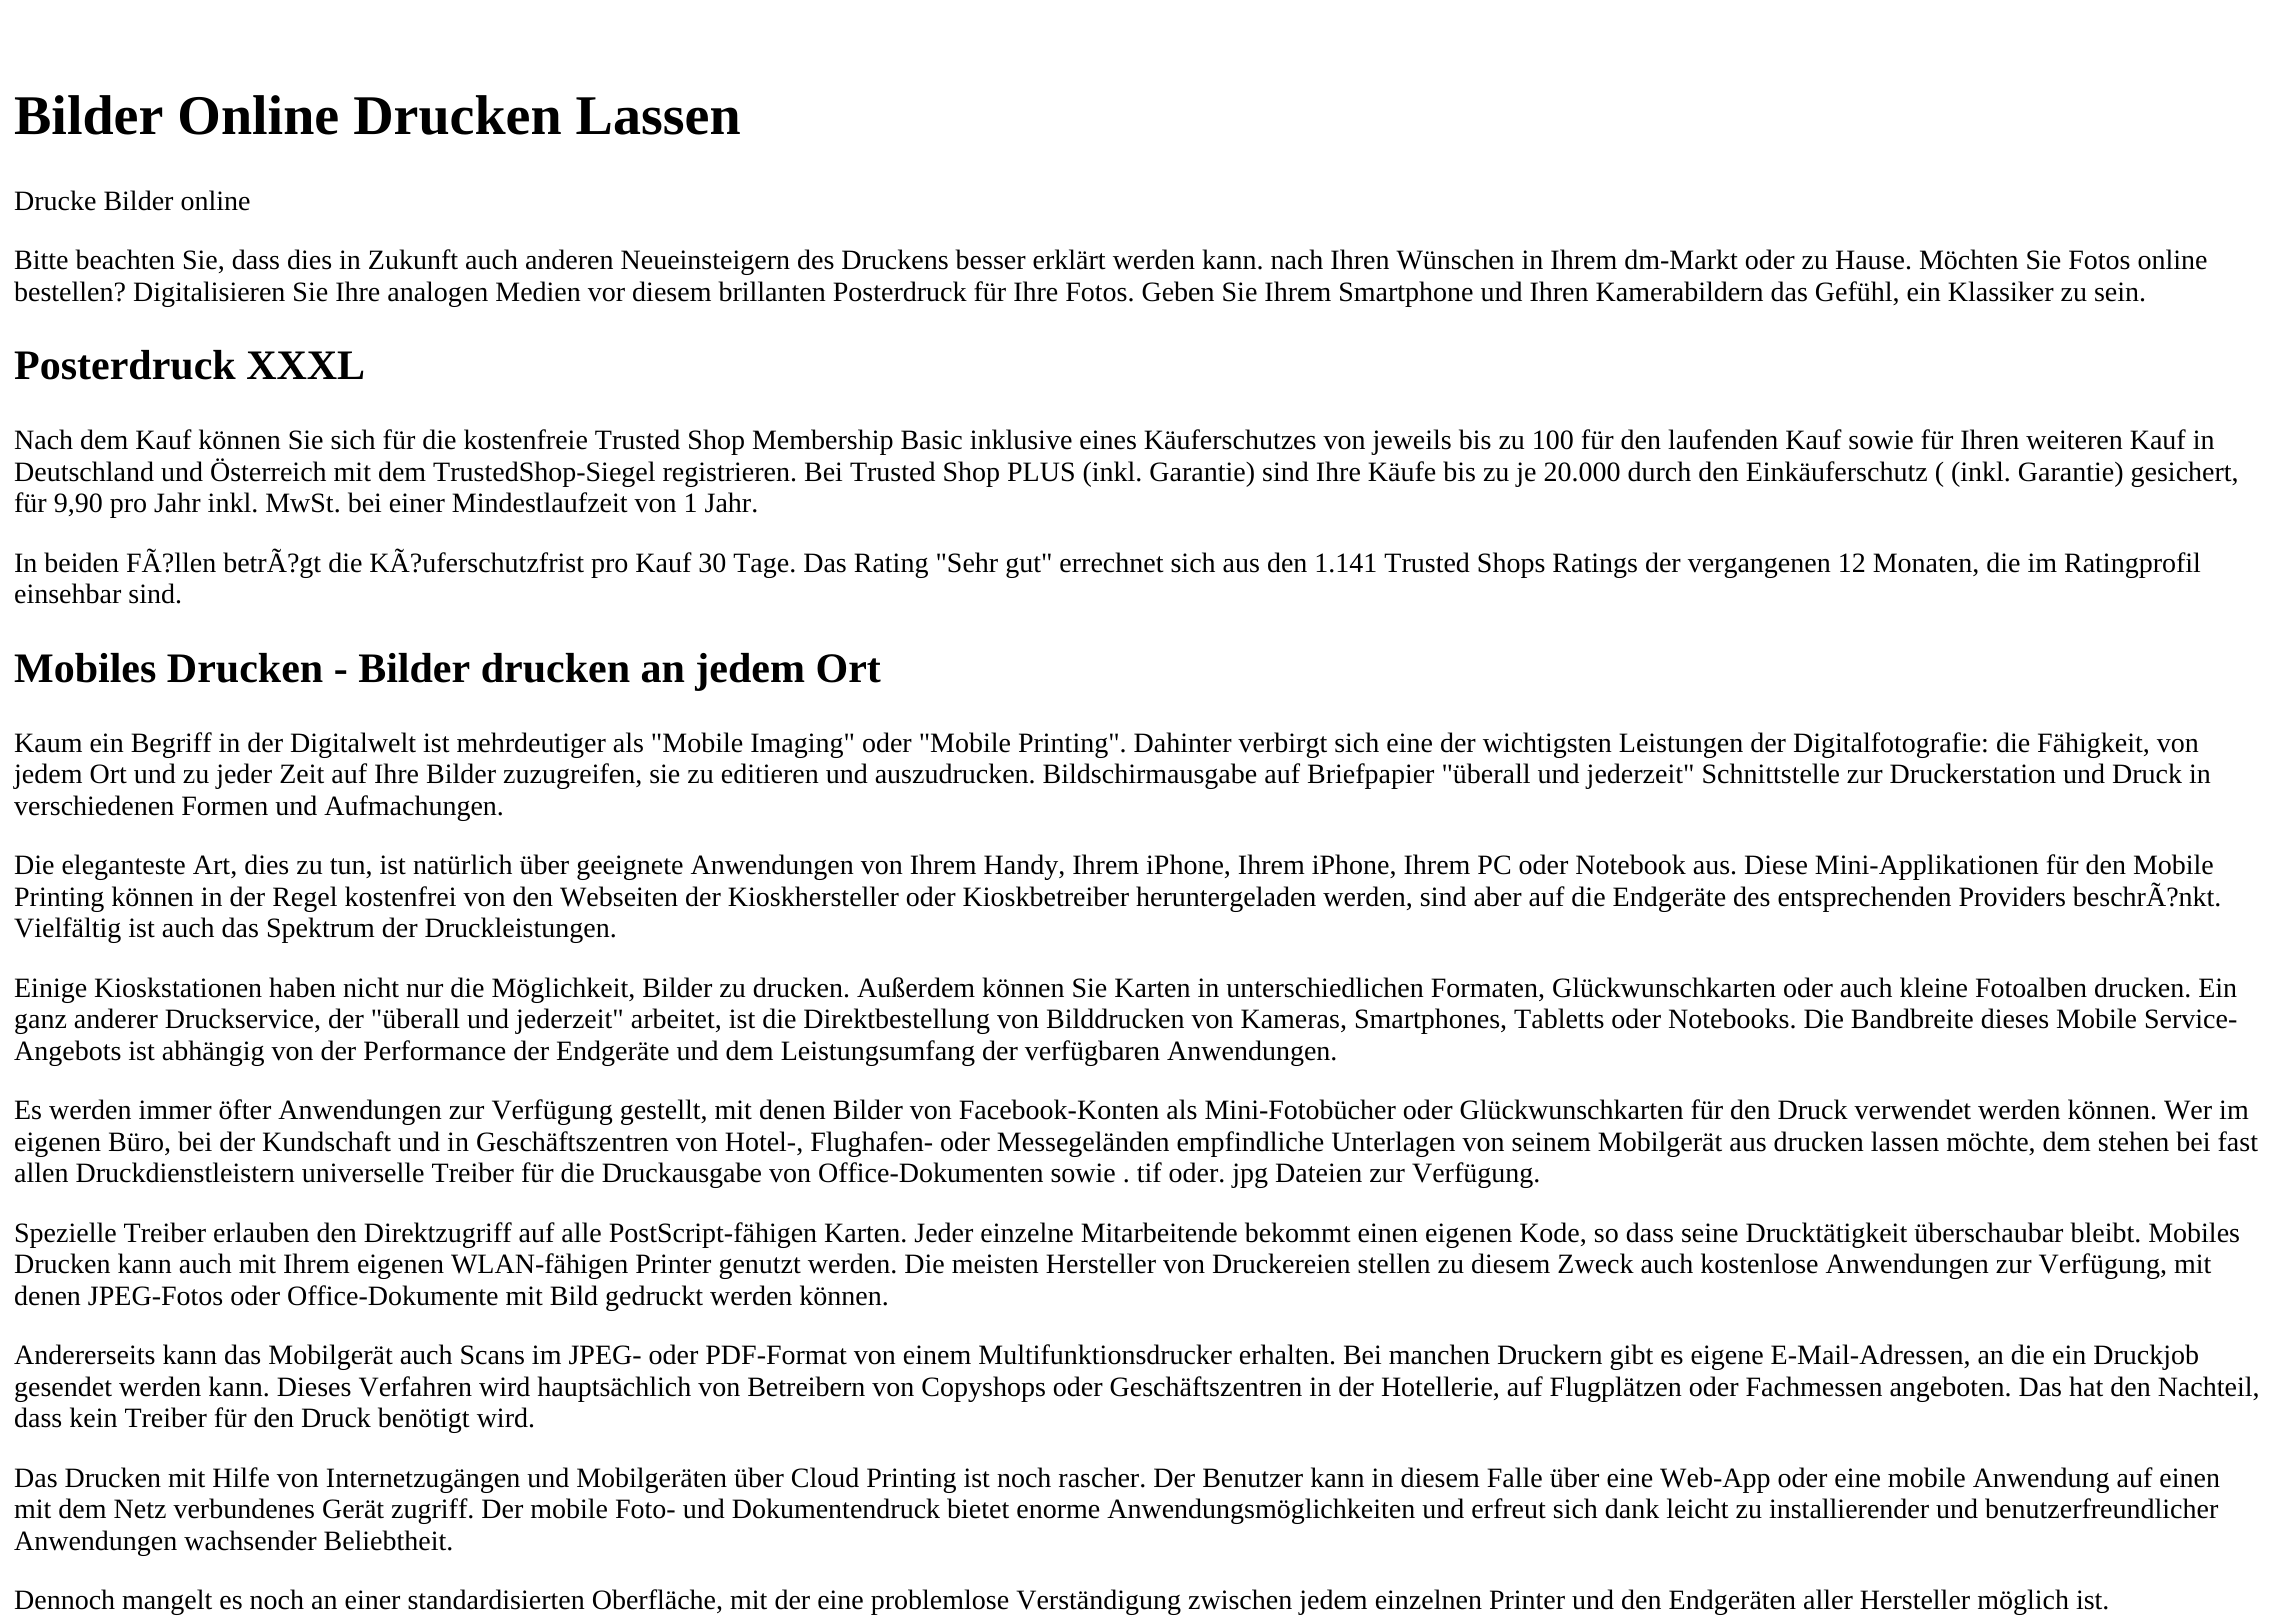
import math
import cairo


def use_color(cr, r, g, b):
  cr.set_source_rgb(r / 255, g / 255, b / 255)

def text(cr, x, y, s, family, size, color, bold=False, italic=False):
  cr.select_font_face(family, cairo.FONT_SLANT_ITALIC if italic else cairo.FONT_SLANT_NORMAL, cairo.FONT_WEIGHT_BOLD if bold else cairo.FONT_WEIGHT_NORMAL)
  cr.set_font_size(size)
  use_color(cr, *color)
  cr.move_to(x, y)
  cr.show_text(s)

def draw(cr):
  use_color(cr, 255, 255, 255)
  cr.paint()
  text(cr, 14, 134, "Bilder Online Drucken Lassen", "Liberation Serif", 56, (0, 0, 0), bold=True)
  text(cr, 14, 210, "Drucke Bilder online", "Liberation Serif", 28, (0, 0, 0))
  text(cr, 14, 269, "Bitte beachten Sie, dass dies in Zukunft auch anderen Neueinsteigern des Druckens besser erklärt werden kann. nach Ihren Wünschen in Ihrem dm-Markt oder zu Hause. Möchten Sie Fotos online", "Liberation Serif", 28, (0, 0, 0))
  text(cr, 14, 301, "bestellen? Digitalisieren Sie Ihre analogen Medien vor diesem brillanten Posterdruck für Ihre Fotos. Geben Sie Ihrem Smartphone und Ihren Kamerabildern das Gefühl, ein Klassiker zu sein.", "Liberation Serif", 28, (0, 0, 0))
  text(cr, 14, 379, "Posterdruck XXXL", "Liberation Serif", 42, (0, 0, 0), bold=True)
  text(cr, 14, 449, "Nach dem Kauf können Sie sich für die kostenfreie Trusted Shop Membership Basic inklusive eines Käuferschutzes von jeweils bis zu 100 für den laufenden Kauf sowie für Ihren weiteren Kauf in", "Liberation Serif", 28, (0, 0, 0))
  text(cr, 14, 481, "Deutschland und Österreich mit dem TrustedShop-Siegel registrieren. Bei Trusted Shop PLUS (inkl. Garantie) sind Ihre Käufe bis zu je 20.000 durch den Einkäuferschutz ( (inkl. Garantie) gesichert,", "Liberation Serif", 28, (0, 0, 0))
  text(cr, 14, 512, "für 9,90 pro Jahr inkl. MwSt. bei einer Mindestlaufzeit von 1 Jahr.", "Liberation Serif", 28, (0, 0, 0))
  text(cr, 14, 572, "In beiden FÃ?llen betrÃ?gt die KÃ?uferschutzfrist pro Kauf 30 Tage. Das Rating \"Sehr gut\" errechnet sich aus den 1.141 Trusted Shops Ratings der vergangenen 12 Monaten, die im Ratingprofil", "Liberation Serif", 28, (0, 0, 0))
  text(cr, 14, 603, "einsehbar sind.", "Liberation Serif", 28, (0, 0, 0))
  text(cr, 14, 682, "Mobiles Drucken - Bilder drucken an jedem Ort", "Liberation Serif", 42, (0, 0, 0), bold=True)
  text(cr, 14, 752, "Kaum ein Begriff in der Digitalwelt ist mehrdeutiger als \"Mobile Imaging\" oder \"Mobile Printing\". Dahinter verbirgt sich eine der wichtigsten Leistungen der Digitalfotografie: die Fähigkeit, von", "Liberation Serif", 28, (0, 0, 0))
  text(cr, 14, 783, "jedem Ort und zu jeder Zeit auf Ihre Bilder zuzugreifen, sie zu editieren und auszudrucken. Bildschirmausgabe auf Briefpapier \"überall und jederzeit\" Schnittstelle zur Druckerstation und Druck in", "Liberation Serif", 28, (0, 0, 0))
  text(cr, 14, 815, "verschiedenen Formen und Aufmachungen.", "Liberation Serif", 28, (0, 0, 0))
  text(cr, 14, 874, "Die eleganteste Art, dies zu tun, ist natürlich über geeignete Anwendungen von Ihrem Handy, Ihrem iPhone, Ihrem iPhone, Ihrem PC oder Notebook aus. Diese Mini-Applikationen für den Mobile", "Liberation Serif", 28, (0, 0, 0))
  text(cr, 14, 906, "Printing können in der Regel kostenfrei von den Webseiten der Kioskhersteller oder Kioskbetreiber heruntergeladen werden, sind aber auf die Endgeräte des entsprechenden Providers beschrÃ?nkt.", "Liberation Serif", 28, (0, 0, 0))
  text(cr, 14, 937, "Vielfältig ist auch das Spektrum der Druckleistungen.", "Liberation Serif", 28, (0, 0, 0))
  text(cr, 14, 997, "Einige Kioskstationen haben nicht nur die Möglichkeit, Bilder zu drucken. Außerdem können Sie Karten in unterschiedlichen Formaten, Glückwunschkarten oder auch kleine Fotoalben drucken. Ein", "Liberation Serif", 28, (0, 0, 0))
  text(cr, 14, 1028, "ganz anderer Druckservice, der \"überall und jederzeit\" arbeitet, ist die Direktbestellung von Bilddrucken von Kameras, Smartphones, Tabletts oder Notebooks. Die Bandbreite dieses Mobile Service-", "Liberation Serif", 28, (0, 0, 0))
  text(cr, 14, 1060, "Angebots ist abhängig von der Performance der Endgeräte und dem Leistungsumfang der verfügbaren Anwendungen.", "Liberation Serif", 28, (0, 0, 0))
  text(cr, 14, 1119, "Es werden immer öfter Anwendungen zur Verfügung gestellt, mit denen Bilder von Facebook-Konten als Mini-Fotobücher oder Glückwunschkarten für den Druck verwendet werden können. Wer im", "Liberation Serif", 28, (0, 0, 0))
  text(cr, 14, 1151, "eigenen Büro, bei der Kundschaft und in Geschäftszentren von Hotel-, Flughafen- oder Messegeländen empfindliche Unterlagen von seinem Mobilgerät aus drucken lassen möchte, dem stehen bei fast", "Liberation Serif", 28, (0, 0, 0))
  text(cr, 14, 1182, "allen Druckdienstleistern universelle Treiber für die Druckausgabe von Office-Dokumenten sowie . tif oder. jpg Dateien zur Verfügung.", "Liberation Serif", 28, (0, 0, 0))
  text(cr, 14, 1242, "Spezielle Treiber erlauben den Direktzugriff auf alle PostScript-fähigen Karten. Jeder einzelne Mitarbeitende bekommt einen eigenen Kode, so dass seine Drucktätigkeit überschaubar bleibt. Mobiles", "Liberation Serif", 28, (0, 0, 0))
  text(cr, 14, 1273, "Drucken kann auch mit Ihrem eigenen WLAN-fähigen Printer genutzt werden. Die meisten Hersteller von Druckereien stellen zu diesem Zweck auch kostenlose Anwendungen zur Verfügung, mit", "Liberation Serif", 28, (0, 0, 0))
  text(cr, 14, 1305, "denen JPEG-Fotos oder Office-Dokumente mit Bild gedruckt werden können.", "Liberation Serif", 28, (0, 0, 0))
  text(cr, 14, 1364, "Andererseits kann das Mobilgerät auch Scans im JPEG- oder PDF-Format von einem Multifunktionsdrucker erhalten. Bei manchen Druckern gibt es eigene E-Mail-Adressen, an die ein Druckjob", "Liberation Serif", 28, (0, 0, 0))
  text(cr, 14, 1396, "gesendet werden kann. Dieses Verfahren wird hauptsächlich von Betreibern von Copyshops oder Geschäftszentren in der Hotellerie, auf Flugplätzen oder Fachmessen angeboten. Das hat den Nachteil,", "Liberation Serif", 28, (0, 0, 0))
  text(cr, 14, 1427, "dass kein Treiber für den Druck benötigt wird.", "Liberation Serif", 28, (0, 0, 0))
  text(cr, 14, 1487, "Das Drucken mit Hilfe von Internetzugängen und Mobilgeräten über Cloud Printing ist noch rascher. Der Benutzer kann in diesem Falle über eine Web-App oder eine mobile Anwendung auf einen", "Liberation Serif", 28, (0, 0, 0))
  text(cr, 14, 1518, "mit dem Netz verbundenes Gerät zugriff. Der mobile Foto- und Dokumentendruck bietet enorme Anwendungsmöglichkeiten und erfreut sich dank leicht zu installierender und benutzerfreundlicher", "Liberation Serif", 28, (0, 0, 0))
  text(cr, 14, 1550, "Anwendungen wachsender Beliebtheit.", "Liberation Serif", 28, (0, 0, 0))
  text(cr, 14, 1609, "Dennoch mangelt es noch an einer standardisierten Oberfläche, mit der eine problemlose Verständigung zwischen jedem einzelnen Printer und den Endgeräten aller Hersteller möglich ist.", "Liberation Serif", 28, (0, 0, 0))


surface = cairo.ImageSurface(cairo.FORMAT_RGB24, 2275, 1619)
cr = cairo.Context(surface)
options = cairo.FontOptions()
options.set_hint_metrics(cairo.HINT_METRICS_OFF)
options.set_hint_style(cairo.HINT_STYLE_NONE)
cr.set_font_options(options)
cr.set_miter_limit(4)
draw(cr)
surface.write_to_png("out.png")
